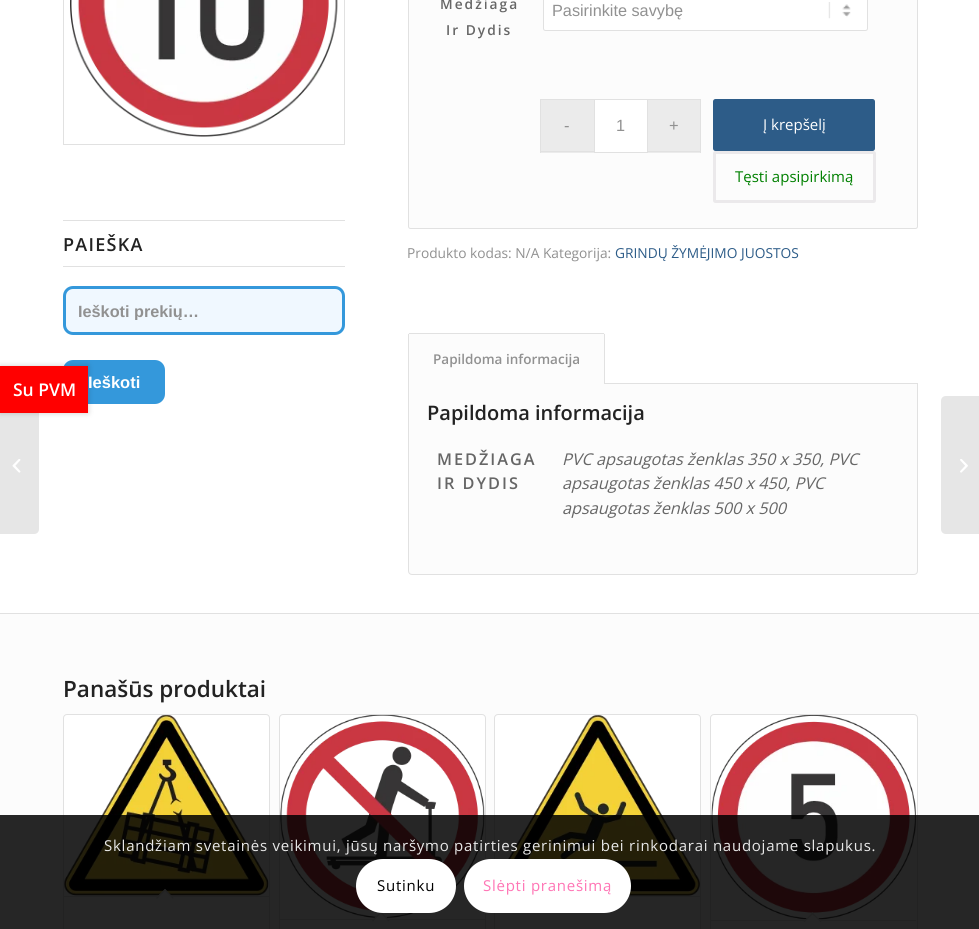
import math
import cairo


def use_color(cr, r, g, b):
  cr.set_source_rgb(r / 255, g / 255, b / 255)

def text(cr, x, y, s, family, size, color, bold=False, italic=False):
  cr.select_font_face(family, cairo.FONT_SLANT_ITALIC if italic else cairo.FONT_SLANT_NORMAL, cairo.FONT_WEIGHT_BOLD if bold else cairo.FONT_WEIGHT_NORMAL)
  cr.set_font_size(size)
  use_color(cr, *color)
  cr.move_to(x, y)
  cr.show_text(s)

def spaced_text(cr, x, y, s, letter, word):
  cr.move_to(x, y)
  for ch in s:
    cr.show_text(ch)
    cr.rel_move_to(letter + word * (ch == ' '), 0)

def box(cr, x, y, w, h, *color):
  use_color(cr, *color)
  cr.rectangle(x, y, w, h)
  cr.fill()

def round_rect(cr, x, y, w, h, r):
  cr.new_sub_path()
  for i, (u, v) in enumerate([(x + w - r, y + h - r), (x + r, y + h - r), (x + r, y + r), (x + w - r, y + r)]):
    cr.arc(u, v, r, i * math.pi / 2, (i + 1) * math.pi / 2)
  cr.close_path()

def shadow(cr, x, y, w, h, r, blur, alpha):
  cr.push_group_with_content(cairo.CONTENT_ALPHA)
  cr.set_operator(cairo.OPERATOR_SOURCE)
  for i in range(15, -16, -2):
    e = blur * i / 6
    if min(w, h) + 2 * e > 0:
      cr.set_source_rgba(0, 0, 0, alpha * math.erfc((i - 1) / 8.5) / 2)
      round_rect(cr, x - e, y - e, w + 2 * e, h + 2 * e, max(0, min(r + e + blur * .6, min(w, h) / 2 + e)))
      cr.fill()
  cr.mask(cr.pop_group())

def picture(cr, path, x, y, w, h):
  cr.save()
  cr.set_source_surface(cairo.ImageSurface.create_from_png(path), x, y)
  cr.rectangle(x, y, w, h)
  cr.fill()
  cr.restore()

def draw(cr):
  use_color(cr, 255, 255, 255)
  cr.paint()
  use_color(cr, 230, 230, 230)
  cr.new_path()
  cr.move_to(0, 396)
  cr.line_to(34, 396)
  cr.curve_to(37, 396, 39, 398, 39, 401)
  cr.line_to(39, 529)
  cr.curve_to(39, 532, 37, 534, 34, 534)
  cr.line_to(0, 534)
  cr.close_path()
  cr.fill()
  use_color(cr, 52, 152, 219)
  round_rect(cr, 63, 360, 102, 44, 10)
  cr.fill()
  use_color(cr, 0, 0, 0)
  shadow(cr, 0, 366, 88, 47, 0, 3, 0.2)
  box(cr, 0, 366, 88, 47, 255, 0, 0)
  picture(cr, "img_01.png", 12, 459, 9, 14)
  cr.rectangle(63.5, -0.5, 281, 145)
  use_color(cr, 225, 225, 225)
  cr.set_line_width(1)
  cr.stroke()
  picture(cr, "img_02.png", 70, 0, 268, 137)
  box(cr, 63, 220, 282, 1, 225, 225, 225)
  box(cr, 63, 266, 282, 1, 225, 225, 225)
  use_color(cr, 240, 248, 255)
  round_rect(cr, 64.5, 287.5, 279, 46, 8.5)
  cr.fill_preserve()
  use_color(cr, 52, 152, 219)
  cr.set_line_width(3)
  cr.stroke()
  use_color(cr, 252, 252, 252)
  round_rect(cr, 408.5, -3.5, 509, 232, 2)
  cr.fill_preserve()
  use_color(cr, 225, 225, 225)
  cr.set_line_width(1)
  cr.stroke()
  use_color(cr, 255, 255, 255)
  round_rect(cr, 543, -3, 325, 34, 2.5)
  cr.fill()
  picture(cr, "img_03.png", 828, 2, 23, 17)
  round_rect(cr, 543.5, -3.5, 324, 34, 2)
  use_color(cr, 225, 225, 225)
  cr.stroke()
  box(cr, 541, 100, 53, 53, 235, 235, 235)
  box(cr, 540, 99, 54, 1, 225, 225, 225)
  box(cr, 540, 151, 54, 1, 225, 225, 225)
  box(cr, 540, 99, 1, 54, 225, 225, 225)
  use_color(cr, 255, 255, 255)
  cr.rectangle(594.5, 99.5, 53, 53)
  cr.fill_preserve()
  use_color(cr, 225, 225, 225)
  cr.stroke()
  box(cr, 648, 100, 52, 53, 235, 235, 235)
  box(cr, 648, 99, 53, 1, 225, 225, 225)
  box(cr, 700, 99, 1, 54, 225, 225, 225)
  box(cr, 648, 151, 53, 1, 225, 225, 225)
  use_color(cr, 45, 92, 136)
  round_rect(cr, 713, 99, 162, 52, 2.5)
  cr.fill()
  round_rect(cr, 714.5, 152.5, 160, 49, 1)
  use_color(cr, 235, 233, 235)
  cr.set_line_width(3)
  cr.stroke()
  use_color(cr, 252, 252, 252)
  cr.new_path()
  cr.move_to(408.5, 383.5)
  cr.line_to(917.5, 383.5)
  cr.line_to(917.5, 571)
  cr.curve_to(917.5, 573, 916, 574.5, 914, 574.5)
  cr.line_to(412, 574.5)
  cr.curve_to(410, 574.5, 408.5, 573, 408.5, 571)
  cr.close_path()
  cr.fill_preserve()
  use_color(cr, 225, 225, 225)
  cr.set_line_width(1)
  cr.stroke()
  box(cr, 408, 333, 197, 51, 252, 252, 252)
  box(cr, 409, 333, 195, 1, 225, 225, 225)
  box(cr, 604, 334, 1, 50, 225, 225, 225)
  box(cr, 408, 334, 1, 50, 225, 225, 225)
  box(cr, 0, 614, 979, 315, 252, 252, 252)
  box(cr, 0, 613, 979, 1, 225, 225, 225)
  use_color(cr, 255, 255, 255)
  round_rect(cr, 63.5, 714.5, 206, 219, 3.5)
  cr.fill_preserve()
  use_color(cr, 225, 225, 225)
  cr.stroke()
  picture(cr, "img_04.png", 64, 714, 205, 182)
  box(cr, 64, 896, 205, 1, 225, 225, 225)
  use_color(cr, 255, 255, 255)
  cr.new_path()
  cr.move_to(165, 889)
  cr.line_to(173.5, 898)
  cr.line_to(165, 906.5)
  cr.line_to(156, 898)
  cr.close_path()
  cr.fill()
  use_color(cr, 225, 225, 225)
  cr.new_path()
  cr.move_to(165, 889)
  cr.line_to(173.5, 898)
  cr.line_to(173, 899)
  cr.line_to(164, 890)
  cr.close_path()
  cr.fill()
  cr.new_path()
  cr.move_to(165, 889)
  cr.line_to(166, 890)
  cr.line_to(157, 899)
  cr.line_to(156, 898)
  cr.close_path()
  cr.fill()
  use_color(cr, 255, 255, 255)
  round_rect(cr, 279.5, 714.5, 206, 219, 3.5)
  cr.fill_preserve()
  use_color(cr, 225, 225, 225)
  cr.stroke()
  picture(cr, "img_05.png", 280, 714, 205, 205)
  box(cr, 280, 919, 205, 1, 225, 225, 225)
  use_color(cr, 255, 255, 255)
  cr.new_path()
  cr.move_to(381, 911.5)
  cr.line_to(389.5, 920.5)
  cr.line_to(381, 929.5)
  cr.line_to(372, 920.5)
  cr.close_path()
  cr.fill()
  use_color(cr, 225, 225, 225)
  cr.new_path()
  cr.move_to(381, 911.5)
  cr.line_to(389.5, 920.5)
  cr.line_to(388.5, 921.5)
  cr.line_to(380, 912.5)
  cr.close_path()
  cr.fill()
  cr.new_path()
  cr.move_to(381, 911.5)
  cr.line_to(381.5, 912.5)
  cr.line_to(373, 921.5)
  cr.line_to(372, 920.5)
  cr.close_path()
  cr.fill()
  use_color(cr, 255, 255, 255)
  round_rect(cr, 494.5, 714.5, 206, 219, 3.5)
  cr.fill_preserve()
  use_color(cr, 225, 225, 225)
  cr.stroke()
  picture(cr, "img_06.png", 508, 715, 192, 181)
  box(cr, 628, 896, 72, 1, 225, 225, 225)
  use_color(cr, 255, 255, 255)
  round_rect(cr, 710.5, 714.5, 207, 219, 3.5)
  cr.fill_preserve()
  use_color(cr, 225, 225, 225)
  cr.stroke()
  picture(cr, "img_07.png", 711, 714, 205, 206)
  box(cr, 711, 920, 205, 1, 225, 225, 225)
  use_color(cr, 255, 255, 255)
  cr.new_path()
  cr.move_to(812.5, 912.5)
  cr.line_to(821.5, 921.5)
  cr.line_to(812.5, 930)
  cr.line_to(803.5, 921.5)
  cr.close_path()
  cr.fill()
  use_color(cr, 225, 225, 225)
  cr.new_path()
  cr.move_to(812.5, 912.5)
  cr.line_to(821.5, 921.5)
  cr.line_to(820.5, 922)
  cr.line_to(811.5, 913.5)
  cr.close_path()
  cr.fill()
  cr.new_path()
  cr.move_to(812.5, 912.5)
  cr.line_to(813.5, 913.5)
  cr.line_to(804.5, 922)
  cr.line_to(803.5, 921.5)
  cr.close_path()
  cr.fill()
  use_color(cr, 230, 230, 230)
  cr.new_path()
  cr.move_to(946, 396)
  cr.line_to(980, 396)
  cr.line_to(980, 534)
  cr.line_to(946, 534)
  cr.curve_to(943, 534, 941, 532, 941, 529)
  cr.line_to(941, 401)
  cr.curve_to(941, 398, 943, 396, 946, 396)
  cr.close_path()
  cr.fill()
  picture(cr, "img_08.png", 960, 459, 8, 14)
  cr.set_source_rgba(0, 0, 0, 0.85)
  cr.rectangle(0, 815, 979, 114)
  cr.fill()
  use_color(cr, 255, 255, 255)
  round_rect(cr, 356, 859, 100, 54, 27)
  cr.fill()
  round_rect(cr, 465.5, 860.5, 164, 51, 25.5)
  cr.fill_preserve()
  cr.set_line_width(3)
  cr.stroke()
  text(cr, 13, 396, "Su PVM", "Open Sans SemiBold", 17.5, (255, 255, 255))
  cr.set_font_size(18)
  use_color(cr, 34, 34, 34)
  spaced_text(cr, 63, 251, "PAIEŠKA", 1.25, 0)
  cr.save()
  cr.rectangle(78, 301, 236, 19)
  cr.clip()
  text(cr, 78, 317, "Ieškoti prekių…", "Liberation Sans", 16.25, (145, 145, 145), bold=True)
  cr.restore()
  text(cr, 88, 388, "Ieškoti", "Liberation Sans", 16.5, (255, 255, 255), bold=True)
  cr.select_font_face("Open Sans SemiBold")
  cr.set_font_size(13.75)
  use_color(cr, 102, 102, 102)
  spaced_text(cr, 440, 9, "Medžiaga", 2, 0)
  spaced_text(cr, 446, 35, "Ir Dydis", 2, 0)
  text(cr, 552, 16, "Pasirinkite savybę", "Liberation Sans", 16.25, (145, 145, 145))
  text(cr, 564, 131, "-", "Liberation Sans", 16.5, (145, 145, 145))
  text(cr, 616, 131, "1", "Liberation Sans", 16.25, (145, 145, 145))
  text(cr, 669, 131, "+", "Liberation Sans", 16.5, (145, 145, 145))
  text(cr, 763, 130, "Į krepšelį", "Open Sans", 15, (255, 255, 255))
  text(cr, 735, 182, "Tęsti apsipirkimą", "Open Sans", 15, (0, 128, 0))
  text(cr, 407, 258, "Produkto kodas: N/A Kategorija:", "Open Sans", 13.75, (145, 145, 145))
  text(cr, 615, 258, "GRINDŲ ŽYMĖJIMO JUOSTOS", "Open Sans", 13.75, (45, 92, 136))
  text(cr, 433, 364, "Papildoma informacija", "Open Sans SemiBold", 13.5, (145, 145, 145))
  text(cr, 427, 420, "Papildoma informacija", "Open Sans SemiBold", 20, (34, 34, 34))
  cr.set_font_size(16.25)
  use_color(cr, 102, 102, 102)
  spaced_text(cr, 437, 465, "MEDŽIAGA", 2, 0)
  spaced_text(cr, 437, 489, "IR DYDIS", 2, 0)
  text(cr, 562, 465, "PVC apsaugotas ženklas 350 x 350, PVC", "Open Sans", 16.25, (102, 102, 102), italic=True)
  text(cr, 562, 489, "apsaugotas ženklas 450 x 450, PVC", "Open Sans", 16.25, (102, 102, 102), italic=True)
  text(cr, 562, 514, "apsaugotas ženklas 500 x 500", "Open Sans", 16.25, (102, 102, 102), italic=True)
  text(cr, 63, 697, "Panašūs produktai", "Open Sans SemiBold", 22.5, (34, 34, 34))
  cr.select_font_face("Open Sans")
  cr.set_font_size(15)
  use_color(cr, 232, 232, 232)
  spaced_text(cr, 104, 851, "Sklandžiam svetainės veikimui, jūsų naršymo patirties gerinimui bei rinkodarai naudojame slapukus.", 0.75, 0)
  use_color(cr, 0, 0, 0)
  spaced_text(cr, 377, 891, "Sutinku", 0.75, 0)
  use_color(cr, 255, 117, 181)
  spaced_text(cr, 483, 891, "Slėpti pranešimą", 0.75, 0)


surface = cairo.ImageSurface(cairo.FORMAT_RGB24, 979, 929)
cr = cairo.Context(surface)
options = cairo.FontOptions()
options.set_hint_metrics(cairo.HINT_METRICS_OFF)
options.set_hint_style(cairo.HINT_STYLE_NONE)
cr.set_font_options(options)
cr.set_miter_limit(4)
draw(cr)
surface.write_to_png("out.png")
